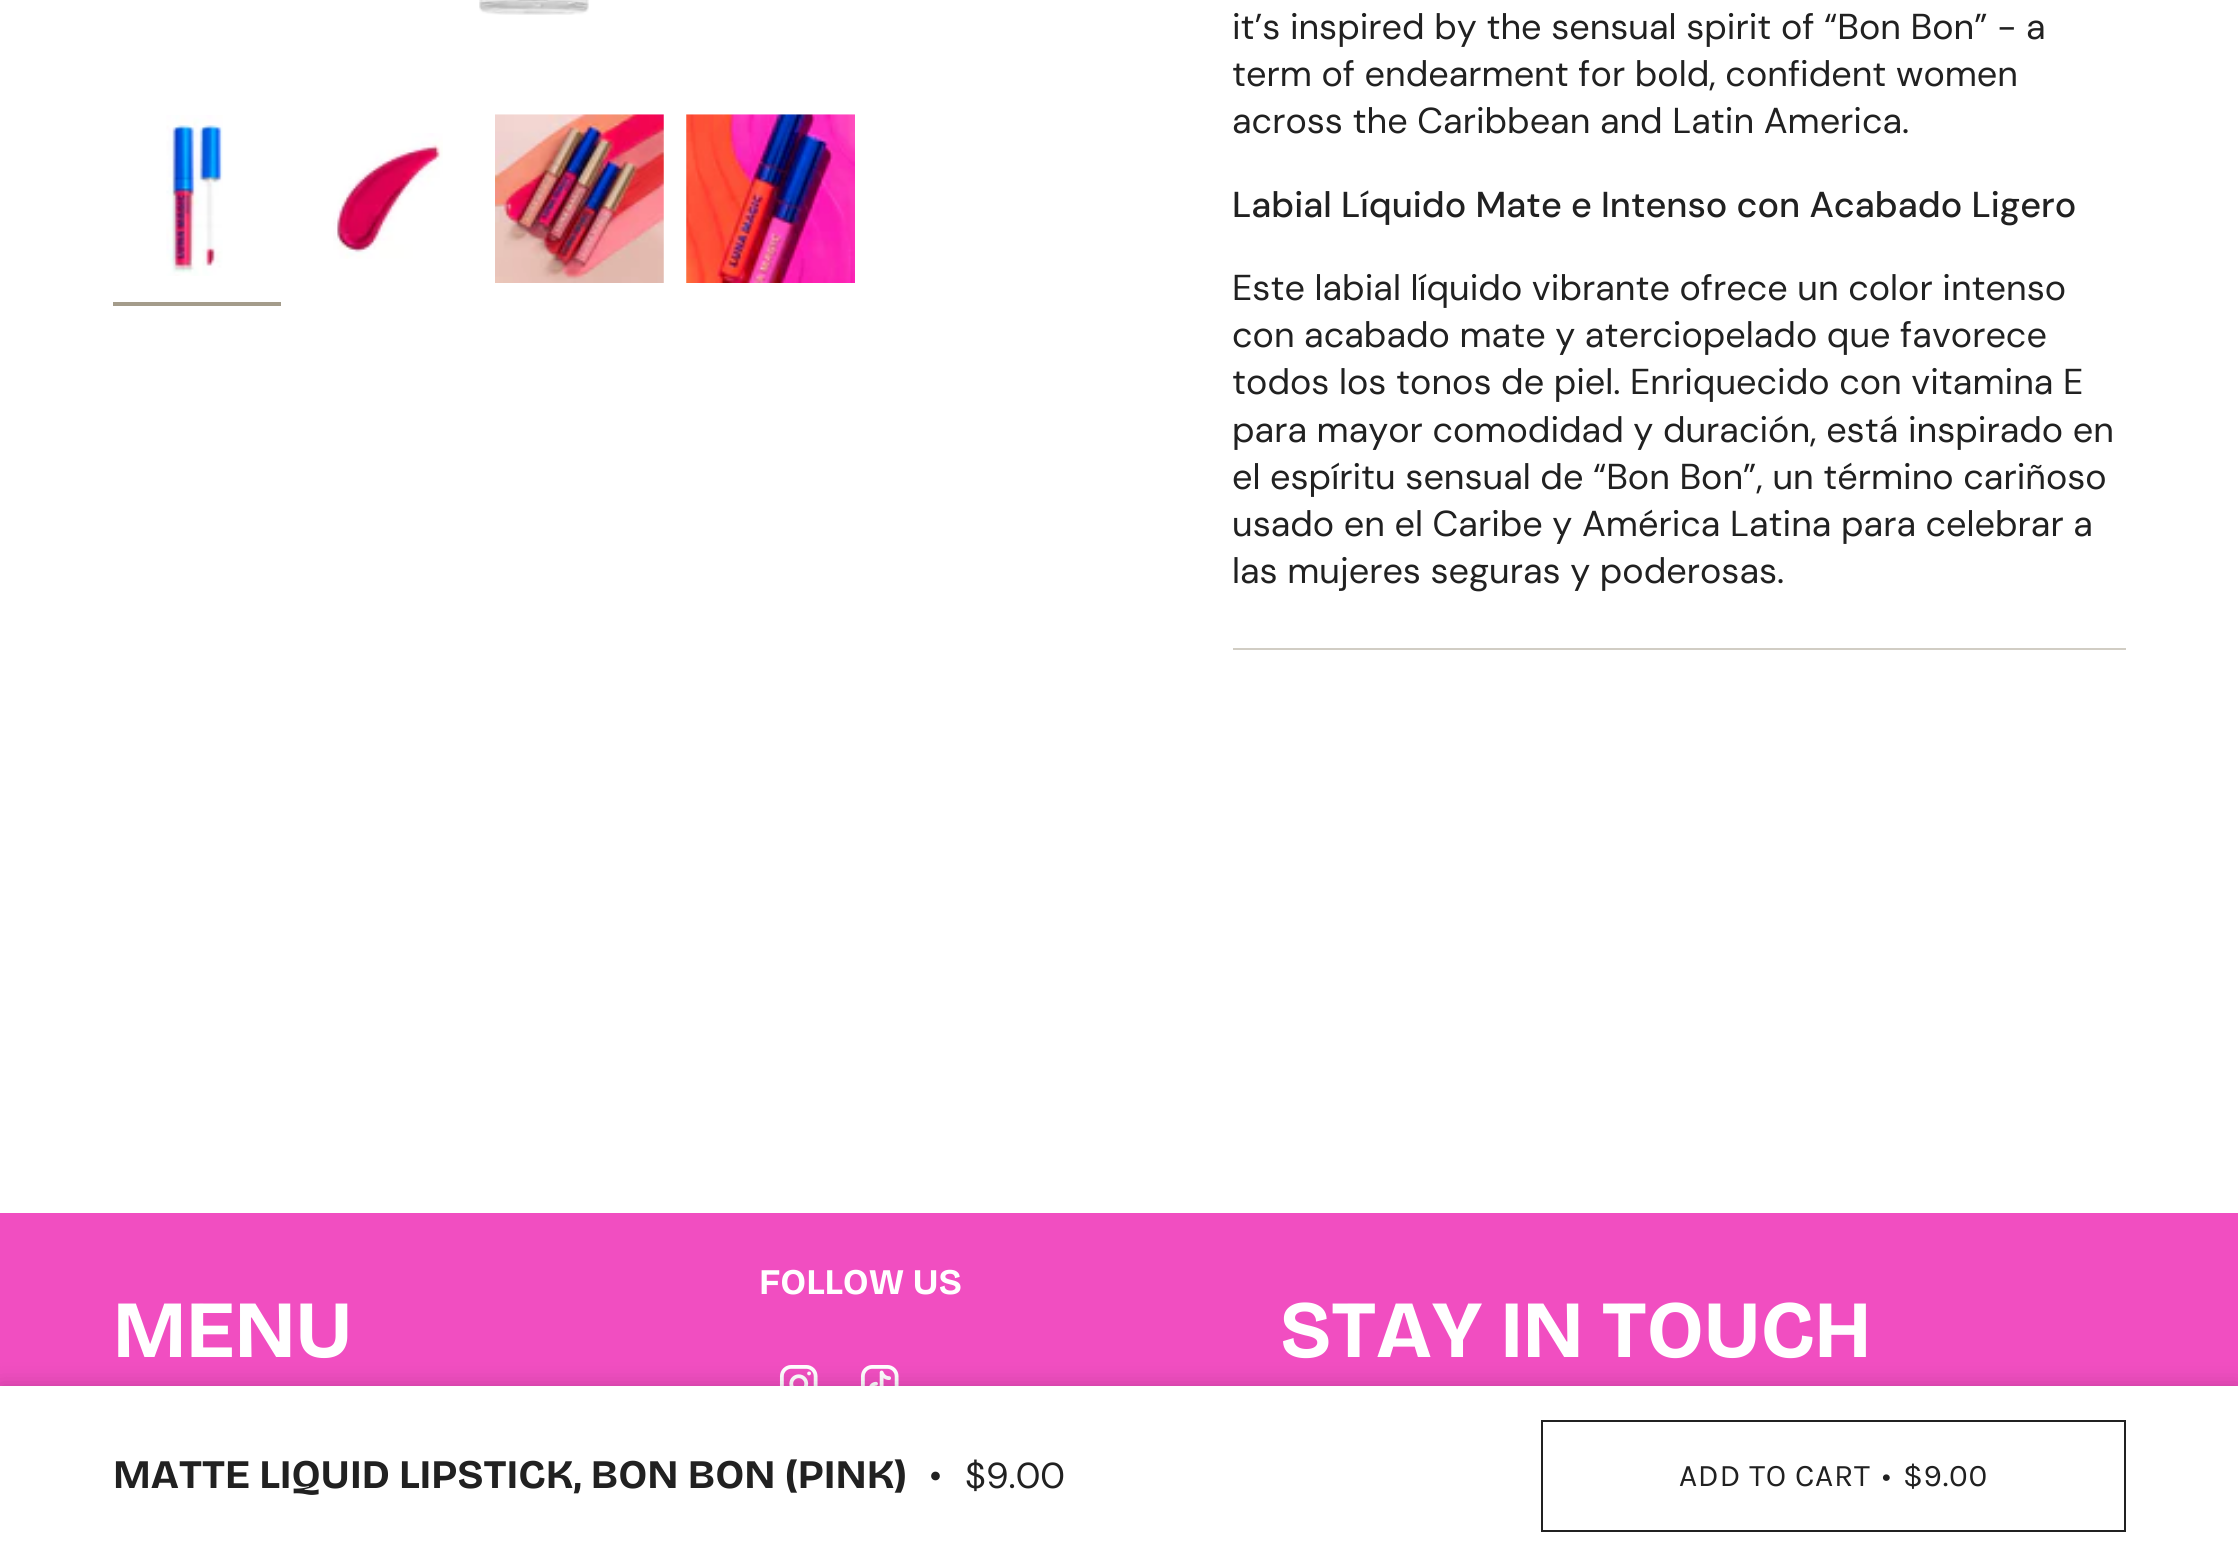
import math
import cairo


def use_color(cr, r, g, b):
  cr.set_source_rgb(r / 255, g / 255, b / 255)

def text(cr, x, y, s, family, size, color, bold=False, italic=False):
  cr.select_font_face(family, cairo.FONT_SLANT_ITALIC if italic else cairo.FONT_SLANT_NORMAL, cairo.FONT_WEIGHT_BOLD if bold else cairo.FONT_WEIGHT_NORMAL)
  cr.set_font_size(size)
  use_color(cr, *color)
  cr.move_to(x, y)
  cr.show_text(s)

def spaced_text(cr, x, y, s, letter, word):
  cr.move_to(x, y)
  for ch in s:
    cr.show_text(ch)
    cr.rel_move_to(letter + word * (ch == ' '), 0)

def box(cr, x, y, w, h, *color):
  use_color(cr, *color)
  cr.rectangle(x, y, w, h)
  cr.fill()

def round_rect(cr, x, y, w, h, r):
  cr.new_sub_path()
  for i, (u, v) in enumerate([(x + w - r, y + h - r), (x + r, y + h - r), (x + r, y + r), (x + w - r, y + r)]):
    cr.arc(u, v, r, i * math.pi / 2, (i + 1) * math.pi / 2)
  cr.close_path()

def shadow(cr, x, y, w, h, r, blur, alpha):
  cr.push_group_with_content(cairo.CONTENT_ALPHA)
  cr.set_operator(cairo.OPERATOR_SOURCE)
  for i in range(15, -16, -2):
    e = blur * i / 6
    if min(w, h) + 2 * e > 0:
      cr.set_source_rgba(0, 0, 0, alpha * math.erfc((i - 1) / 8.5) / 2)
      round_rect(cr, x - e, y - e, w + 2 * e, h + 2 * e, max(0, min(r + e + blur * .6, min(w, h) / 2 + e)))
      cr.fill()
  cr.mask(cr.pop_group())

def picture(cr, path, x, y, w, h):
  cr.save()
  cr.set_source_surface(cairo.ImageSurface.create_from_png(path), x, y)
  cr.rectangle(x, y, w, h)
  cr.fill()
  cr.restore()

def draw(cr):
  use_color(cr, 255, 255, 255)
  cr.paint()
  picture(cr, "img_01.png", 479, 0, 110, 15)
  picture(cr, "img_02.png", 166, 115, 57, 161)
  box(cr, 113, 302, 168, 4, 164, 156, 139)
  picture(cr, "img_03.png", 333, 133, 110, 126)
  picture(cr, "img_04.png", 495, 114, 169, 169)
  picture(cr, "img_05.png", 686, 114, 169, 169)
  box(cr, 1233, 648, 893, 2, 209, 205, 196)
  box(cr, 0, 1213, 2238, 173, 241, 78, 193)
  picture(cr, "img_06.png", 779, 1365, 39, 21)
  picture(cr, "img_07.png", 860, 1365, 39, 21)
  use_color(cr, 0, 0, 0)
  shadow(cr, 0, 1386, 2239, 180, 0, 11, 0.2)
  box(cr, 0, 1386, 2238, 180, 255, 255, 255)
  cr.rectangle(1542, 1421, 583, 110)
  use_color(cr, 33, 33, 33)
  cr.stroke()
  text(cr, 1232, 39, "it’s inspired by the sensual spirit of “Bon Bon” - a", "DM Sans", 36, (33, 33, 33))
  text(cr, 1232, 86, "term of endearment for bold, confident women", "DM Sans", 36, (33, 33, 33))
  text(cr, 1232, 133, "across the Caribbean and Latin America.", "DM Sans", 36, (33, 33, 33))
  text(cr, 1232, 217, "Labial Líquido Mate e Intenso con Acabado Ligero", "DM Sans Medium", 36, (33, 33, 33))
  text(cr, 1232, 300, "Este labial líquido vibrante ofrece un color intenso", "DM Sans", 36, (33, 33, 33))
  text(cr, 1232, 347, "con acabado mate y aterciopelado que favorece", "DM Sans", 36, (33, 33, 33))
  text(cr, 1232, 394, "todos los tonos de piel. Enriquecido con vitamina E", "DM Sans", 36, (33, 33, 33))
  text(cr, 1232, 442, "para mayor comodidad y duración, está inspirado en", "DM Sans", 36, (33, 33, 33))
  text(cr, 1232, 489, "el espíritu sensual de “Bon Bon”, un término cariñoso", "DM Sans", 36, (33, 33, 33))
  text(cr, 1232, 536, "usado en el Caribe y América Latina para celebrar a", "DM Sans", 36, (33, 33, 33))
  text(cr, 1232, 583, "las mujeres seguras y poderosas.", "DM Sans", 36, (33, 33, 33))
  text(cr, 113, 1488, "MATTE LIQUID LIPSTICK, BON BON (PINK)", "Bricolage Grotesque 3", 40.5, (33, 33, 33), bold=True)
  text(cr, 929, 1488, "•", "DM Sans", 36, (33, 33, 33))
  text(cr, 965, 1488, "$9.00", "DM Sans", 36, (33, 33, 33))
  cr.select_font_face("Karla")
  cr.set_font_size(31.5)
  spaced_text(cr, 1679, 1486, "ADD TO CART", 0.75, 0)
  spaced_text(cr, 1882, 1486, "•", 0.75, 0)
  spaced_text(cr, 1903, 1486, "$9.00", 0.75, 0)
  text(cr, 759, 1294, "FOLLOW US", "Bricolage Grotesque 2", 36, (255, 255, 255), bold=True)
  text(cr, 113, 1357, "MENU", "Bricolage Grotesque", 81, (255, 255, 255), bold=True)
  text(cr, 1280, 1357, "STAY IN TOUCH", "Bricolage Grotesque", 81, (255, 255, 255), bold=True)


surface = cairo.ImageSurface(cairo.FORMAT_RGB24, 2238, 1566)
cr = cairo.Context(surface)
options = cairo.FontOptions()
options.set_hint_metrics(cairo.HINT_METRICS_OFF)
options.set_hint_style(cairo.HINT_STYLE_NONE)
cr.set_font_options(options)
cr.set_miter_limit(4)
draw(cr)
surface.write_to_png("out.png")
